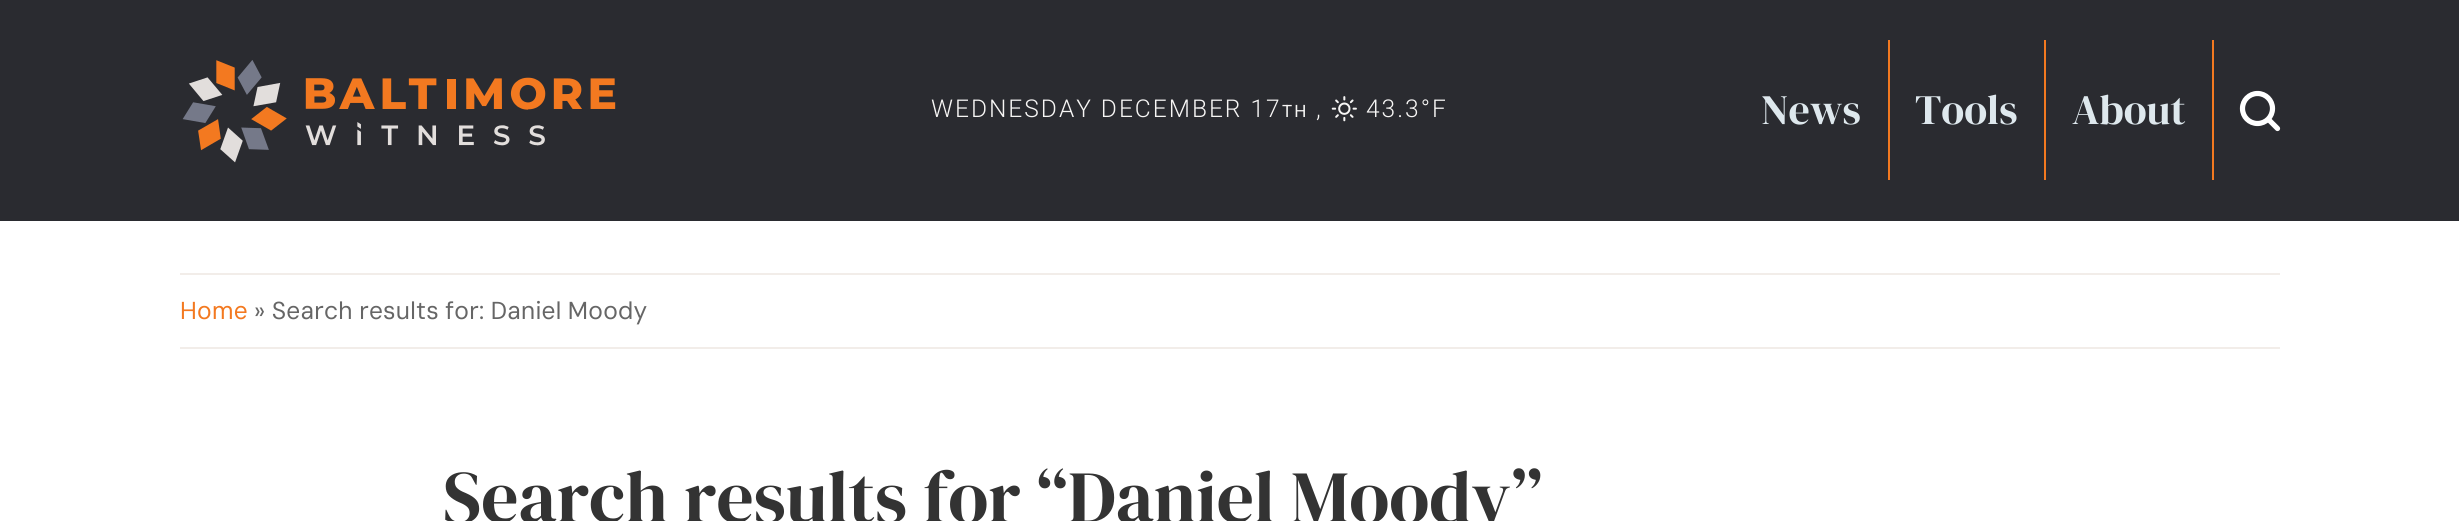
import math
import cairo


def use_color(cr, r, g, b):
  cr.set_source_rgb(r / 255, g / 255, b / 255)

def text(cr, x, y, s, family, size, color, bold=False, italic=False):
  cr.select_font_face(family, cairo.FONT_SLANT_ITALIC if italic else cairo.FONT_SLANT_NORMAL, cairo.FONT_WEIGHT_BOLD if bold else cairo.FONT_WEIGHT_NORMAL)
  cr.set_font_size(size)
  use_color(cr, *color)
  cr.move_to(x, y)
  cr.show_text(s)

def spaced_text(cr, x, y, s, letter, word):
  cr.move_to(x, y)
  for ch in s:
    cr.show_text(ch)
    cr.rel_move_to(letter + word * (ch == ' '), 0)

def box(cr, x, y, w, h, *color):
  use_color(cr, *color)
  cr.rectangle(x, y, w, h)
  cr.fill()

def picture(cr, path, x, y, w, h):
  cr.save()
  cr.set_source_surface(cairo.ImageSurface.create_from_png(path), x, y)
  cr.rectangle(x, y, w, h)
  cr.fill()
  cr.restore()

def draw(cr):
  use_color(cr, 255, 255, 255)
  cr.paint()
  box(cr, 0, 0, 2459, 221, 42, 43, 48)
  picture(cr, "img_01.png", 182, 60, 434, 103)
  picture(cr, "img_02.png", 1331, 96, 26, 26)
  box(cr, 1888, 40, 2, 140, 243, 121, 32)
  box(cr, 2044, 40, 2, 140, 243, 121, 32)
  box(cr, 2212, 40, 2, 140, 243, 121, 32)
  cr.arc(2257.5, 108.5, 15, 0, 2 * math.pi)
  use_color(cr, 255, 255, 255)
  cr.set_line_width(5.2)
  cr.stroke()
  cr.new_path()
  cr.move_to(2277.5, 128.5)
  cr.line_to(2269, 120)
  cr.set_line_cap(cairo.LINE_CAP_ROUND)
  cr.stroke()
  box(cr, 180, 273, 2100, 2, 242, 237, 233)
  box(cr, 180, 347, 2100, 2, 242, 237, 233)
  cr.select_font_face("Roboto Light")
  cr.set_font_size(24.5)
  use_color(cr, 247, 246, 245)
  spaced_text(cr, 931, 117, "WEDNESDAY DECEMBER 17", 2, 0)
  cr.select_font_face("Roboto")
  cr.set_font_size(17)
  spaced_text(cr, 1282, 117, "TH", 2, 0)
  cr.select_font_face("Roboto Light")
  cr.set_font_size(24.5)
  spaced_text(cr, 1316, 117, ",", 2, 0)
  spaced_text(cr, 1366, 117, "43.3°F", 2, 0)
  text(cr, 1761, 124, "News", "DM Serif Display", 42, (222, 232, 237))
  text(cr, 1915, 124, "Tools", "DM Serif Display", 42, (222, 232, 237))
  text(cr, 2072, 124, "About", "DM Serif Display", 42, (222, 232, 237))
  cr.select_font_face("DM Sans")
  cr.set_font_size(24.5)
  use_color(cr, 243, 121, 32)
  spaced_text(cr, 180, 319, "Home", 0.25, 0)
  use_color(cr, 102, 102, 102)
  spaced_text(cr, 254, 319, "» Search results for: Daniel Moody", 0.25, -0.5)
  text(cr, 443, 522, "Search results for “Daniel Moody”", "DM Serif Display", 73.5, (51, 51, 51))


surface = cairo.ImageSurface(cairo.FORMAT_RGB24, 2459, 521)
cr = cairo.Context(surface)
options = cairo.FontOptions()
options.set_hint_metrics(cairo.HINT_METRICS_OFF)
options.set_hint_style(cairo.HINT_STYLE_NONE)
cr.set_font_options(options)
cr.set_miter_limit(4)
draw(cr)
surface.write_to_png("out.png")
